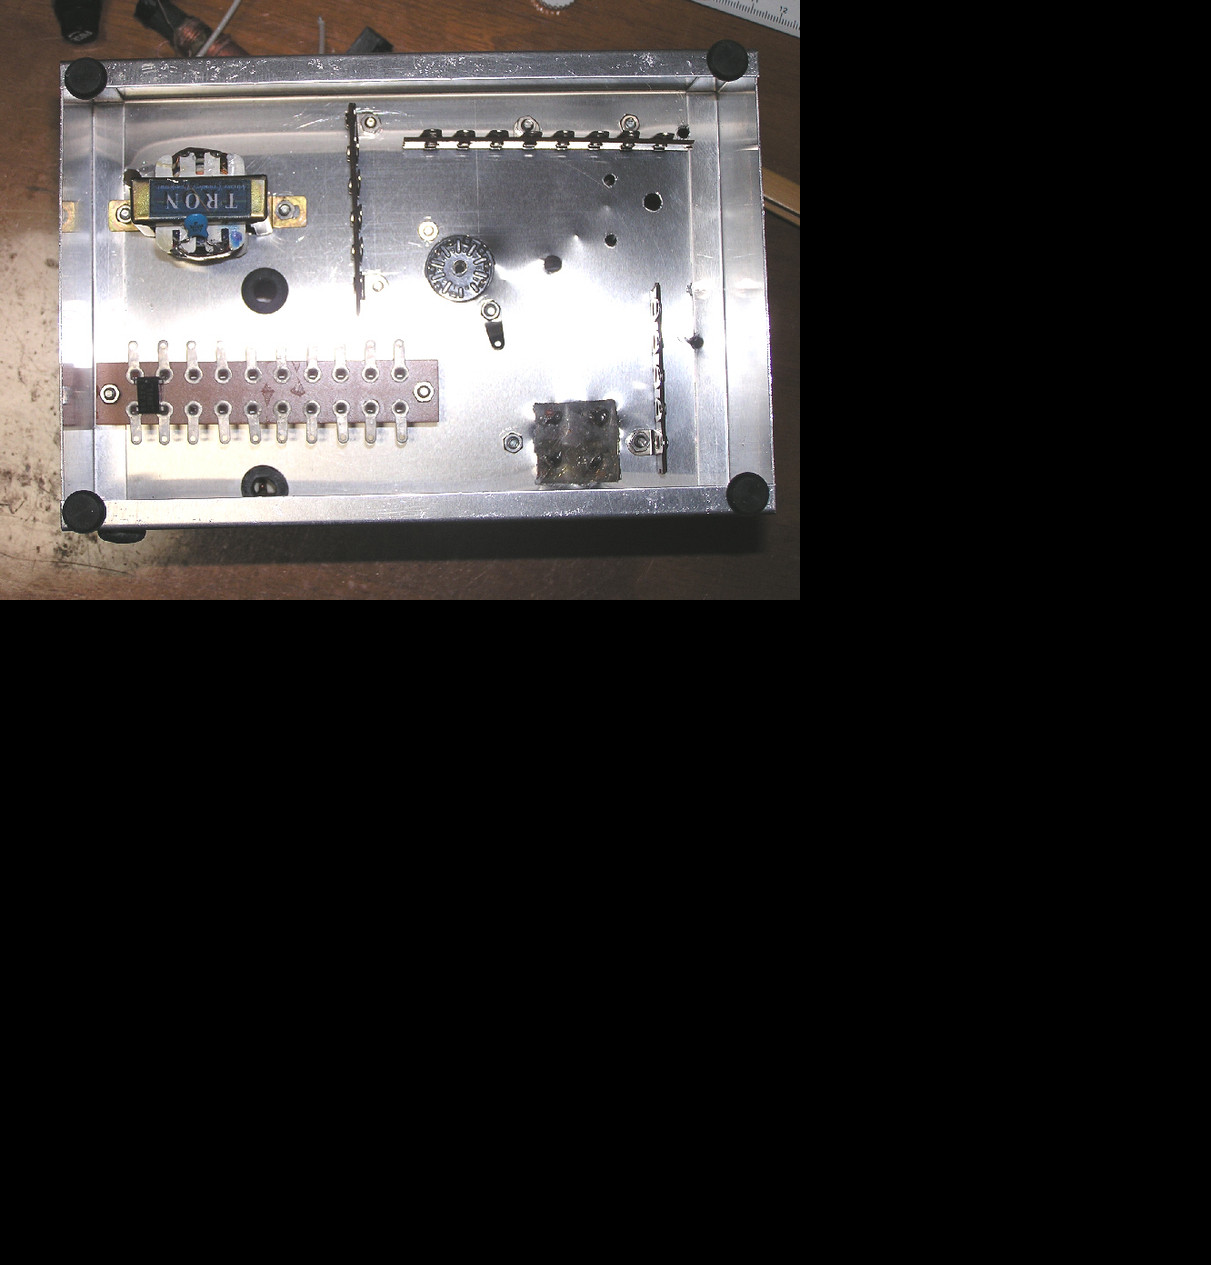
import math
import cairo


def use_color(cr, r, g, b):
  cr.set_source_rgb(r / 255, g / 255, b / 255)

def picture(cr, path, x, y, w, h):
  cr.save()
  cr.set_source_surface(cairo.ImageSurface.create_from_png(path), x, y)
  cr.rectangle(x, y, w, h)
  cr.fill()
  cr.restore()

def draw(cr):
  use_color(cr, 0, 0, 0)
  cr.paint()
  picture(cr, "img_01.png", 0, 0, 800, 600)


surface = cairo.ImageSurface(cairo.FORMAT_RGB24, 1211, 1265)
cr = cairo.Context(surface)
options = cairo.FontOptions()
options.set_hint_metrics(cairo.HINT_METRICS_OFF)
options.set_hint_style(cairo.HINT_STYLE_NONE)
cr.set_font_options(options)
cr.set_miter_limit(4)
draw(cr)
surface.write_to_png("out.png")
